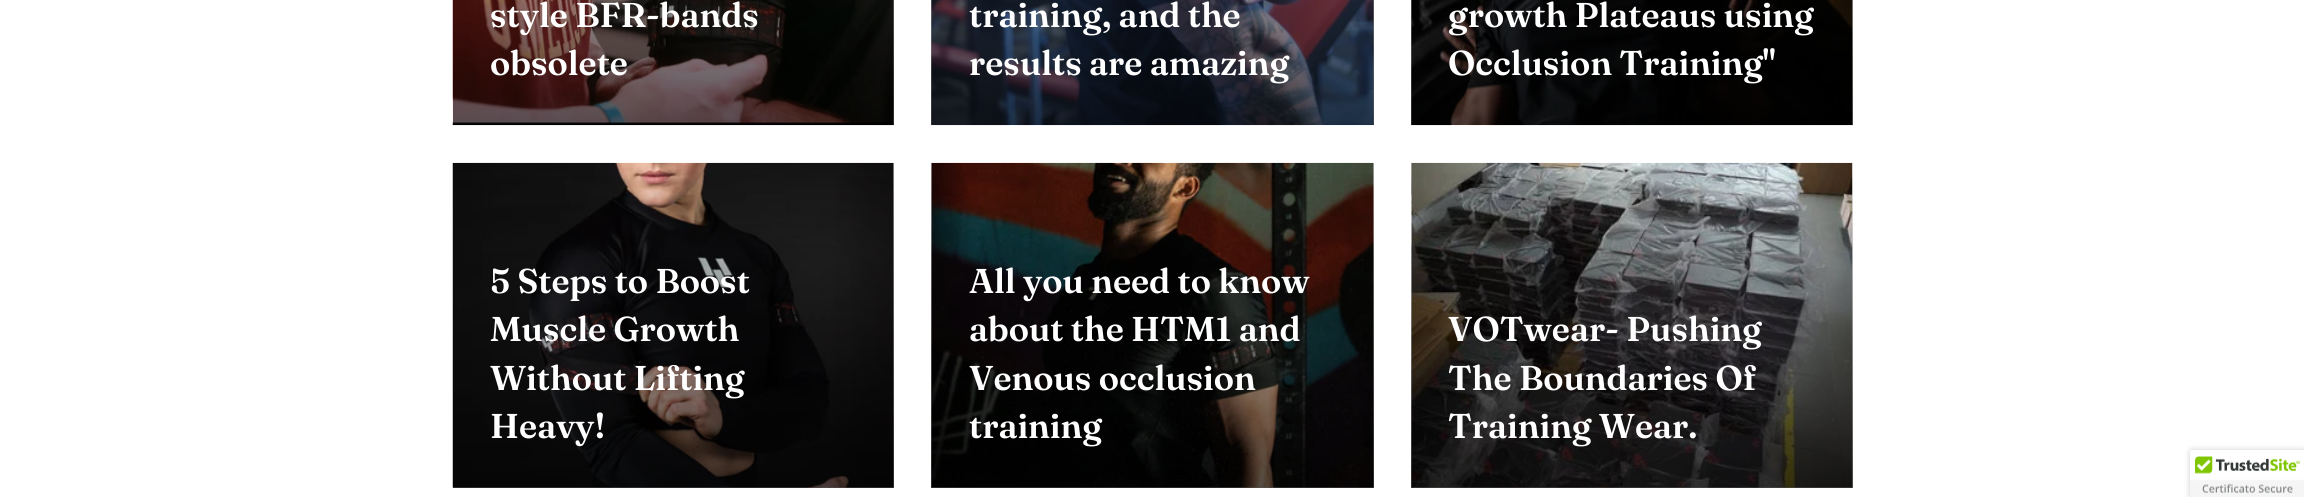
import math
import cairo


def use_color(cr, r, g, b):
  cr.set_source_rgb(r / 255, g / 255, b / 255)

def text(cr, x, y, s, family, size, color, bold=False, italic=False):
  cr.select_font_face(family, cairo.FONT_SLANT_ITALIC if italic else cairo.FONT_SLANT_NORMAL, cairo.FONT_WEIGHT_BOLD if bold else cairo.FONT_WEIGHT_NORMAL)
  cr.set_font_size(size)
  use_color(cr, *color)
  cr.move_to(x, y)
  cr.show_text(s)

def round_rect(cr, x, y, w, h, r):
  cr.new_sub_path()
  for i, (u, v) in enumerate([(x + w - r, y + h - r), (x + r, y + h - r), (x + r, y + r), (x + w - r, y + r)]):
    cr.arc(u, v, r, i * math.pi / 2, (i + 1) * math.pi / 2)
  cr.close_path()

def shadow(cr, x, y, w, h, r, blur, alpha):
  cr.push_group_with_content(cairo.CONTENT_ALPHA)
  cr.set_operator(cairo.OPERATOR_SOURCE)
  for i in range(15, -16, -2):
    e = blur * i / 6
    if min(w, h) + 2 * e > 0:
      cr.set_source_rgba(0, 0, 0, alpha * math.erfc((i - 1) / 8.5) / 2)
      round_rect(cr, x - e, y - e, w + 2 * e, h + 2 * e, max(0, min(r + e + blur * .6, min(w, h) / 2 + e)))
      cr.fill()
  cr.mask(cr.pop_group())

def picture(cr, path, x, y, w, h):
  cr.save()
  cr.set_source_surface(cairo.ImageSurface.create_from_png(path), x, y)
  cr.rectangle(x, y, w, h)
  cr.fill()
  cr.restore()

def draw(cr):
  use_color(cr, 255, 255, 255)
  cr.paint()
  picture(cr, "img_01.png", 452, 0, 442, 126)
  gradient = cairo.LinearGradient(673, -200, 673, 125)
  gradient.add_color_stop_rgba(0, 0, 0, 0, 0)
  gradient.add_color_stop_rgba(1, 0, 0, 0, 0.65)
  cr.set_source(gradient)
  cr.rectangle(453, 0, 441, 125)
  cr.fill()
  picture(cr, "img_02.png", 931, 0, 443, 126)
  gradient = cairo.LinearGradient(1153, -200, 1153, 125)
  gradient.add_color_stop_rgba(0, 0, 0, 0, 0)
  gradient.add_color_stop_rgba(1, 0, 0, 0, 0.65)
  cr.set_source(gradient)
  cr.rectangle(931, 0, 443, 125)
  cr.fill()
  picture(cr, "img_03.png", 1411, 0, 442, 126)
  gradient = cairo.LinearGradient(1632, -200, 1632, 125)
  gradient.add_color_stop_rgba(0, 0, 0, 0, 0)
  gradient.add_color_stop_rgba(1, 0, 0, 0, 0.65)
  cr.set_source(gradient)
  cr.rectangle(1411, 0, 442, 125)
  cr.fill()
  picture(cr, "img_04.png", 452, 162, 442, 326)
  gradient = cairo.LinearGradient(673, 162, 673, 488)
  gradient.add_color_stop_rgba(0, 0, 0, 0, 0)
  gradient.add_color_stop_rgba(1, 0, 0, 0, 0.65)
  cr.set_source(gradient)
  cr.rectangle(453, 173, 441, 315)
  cr.fill()
  picture(cr, "img_05.png", 931, 162, 443, 326)
  gradient = cairo.LinearGradient(1153, 162, 1153, 488)
  gradient.add_color_stop_rgba(0, 0, 0, 0, 0)
  gradient.add_color_stop_rgba(1, 0, 0, 0, 0.65)
  cr.set_source(gradient)
  cr.rectangle(931, 173, 443, 315)
  cr.fill()
  picture(cr, "img_06.png", 1411, 162, 442, 326)
  gradient = cairo.LinearGradient(1632, 162, 1632, 488)
  gradient.add_color_stop_rgba(0, 0, 0, 0, 0)
  gradient.add_color_stop_rgba(1, 0, 0, 0, 0.65)
  cr.set_source(gradient)
  cr.rectangle(1411, 173, 442, 315)
  cr.fill()
  use_color(cr, 0, 0, 0)
  shadow(cr, 2190, 450, 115, 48, 2.5, 3, 0.2)
  use_color(cr, 255, 255, 255)
  cr.new_path()
  cr.move_to(2192.5, 450)
  cr.line_to(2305, 450)
  cr.line_to(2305, 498)
  cr.line_to(2190, 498)
  cr.line_to(2190, 452.5)
  cr.curve_to(2190, 451, 2191, 450, 2192.5, 450)
  cr.close_path()
  cr.fill()
  picture(cr, "img_07.png", 2190, 455, 114, 42)
  text(cr, 490, 27, "style BFR-bands", "Fraunces SemiBold", 34.4, (255, 255, 255))
  text(cr, 490, 75, "obsolete", "Fraunces SemiBold", 34.4, (255, 255, 255))
  text(cr, 969, 27, "training, and the", "Fraunces SemiBold", 34.4, (255, 255, 255))
  text(cr, 969, 75, "results are amazing", "Fraunces SemiBold", 34.4, (255, 255, 255))
  text(cr, 1448, 27, "growth Plateaus using", "Fraunces SemiBold", 34.4, (255, 255, 255))
  text(cr, 1448, 75, "Occlusion Training\"", "Fraunces SemiBold", 34.4, (255, 255, 255))
  text(cr, 490, 293, "5 Steps to Boost", "Fraunces SemiBold", 34.4, (255, 255, 255))
  text(cr, 490, 341, "Muscle Growth", "Fraunces SemiBold", 34.4, (255, 255, 255))
  text(cr, 490, 390, "Without Lifting", "Fraunces SemiBold", 34.4, (255, 255, 255))
  text(cr, 490, 438, "Heavy!", "Fraunces SemiBold", 34.4, (255, 255, 255))
  text(cr, 969, 293, "All you need to know", "Fraunces SemiBold", 34.4, (255, 255, 255))
  text(cr, 969, 341, "about the HTM1 and", "Fraunces SemiBold", 34.4, (255, 255, 255))
  text(cr, 969, 390, "Venous occlusion", "Fraunces SemiBold", 34.4, (255, 255, 255))
  text(cr, 969, 438, "training", "Fraunces SemiBold", 34.4, (255, 255, 255))
  text(cr, 1448, 341, "VOTwear- Pushing", "Fraunces SemiBold", 34.4, (255, 255, 255))
  text(cr, 1448, 390, "The Boundaries Of", "Fraunces SemiBold", 34.4, (255, 255, 255))
  text(cr, 1448, 438, "Training Wear.", "Fraunces SemiBold", 34.4, (255, 255, 255))


surface = cairo.ImageSurface(cairo.FORMAT_RGB24, 2304, 497)
cr = cairo.Context(surface)
options = cairo.FontOptions()
options.set_hint_metrics(cairo.HINT_METRICS_OFF)
options.set_hint_style(cairo.HINT_STYLE_NONE)
cr.set_font_options(options)
cr.set_miter_limit(4)
draw(cr)
surface.write_to_png("out.png")
